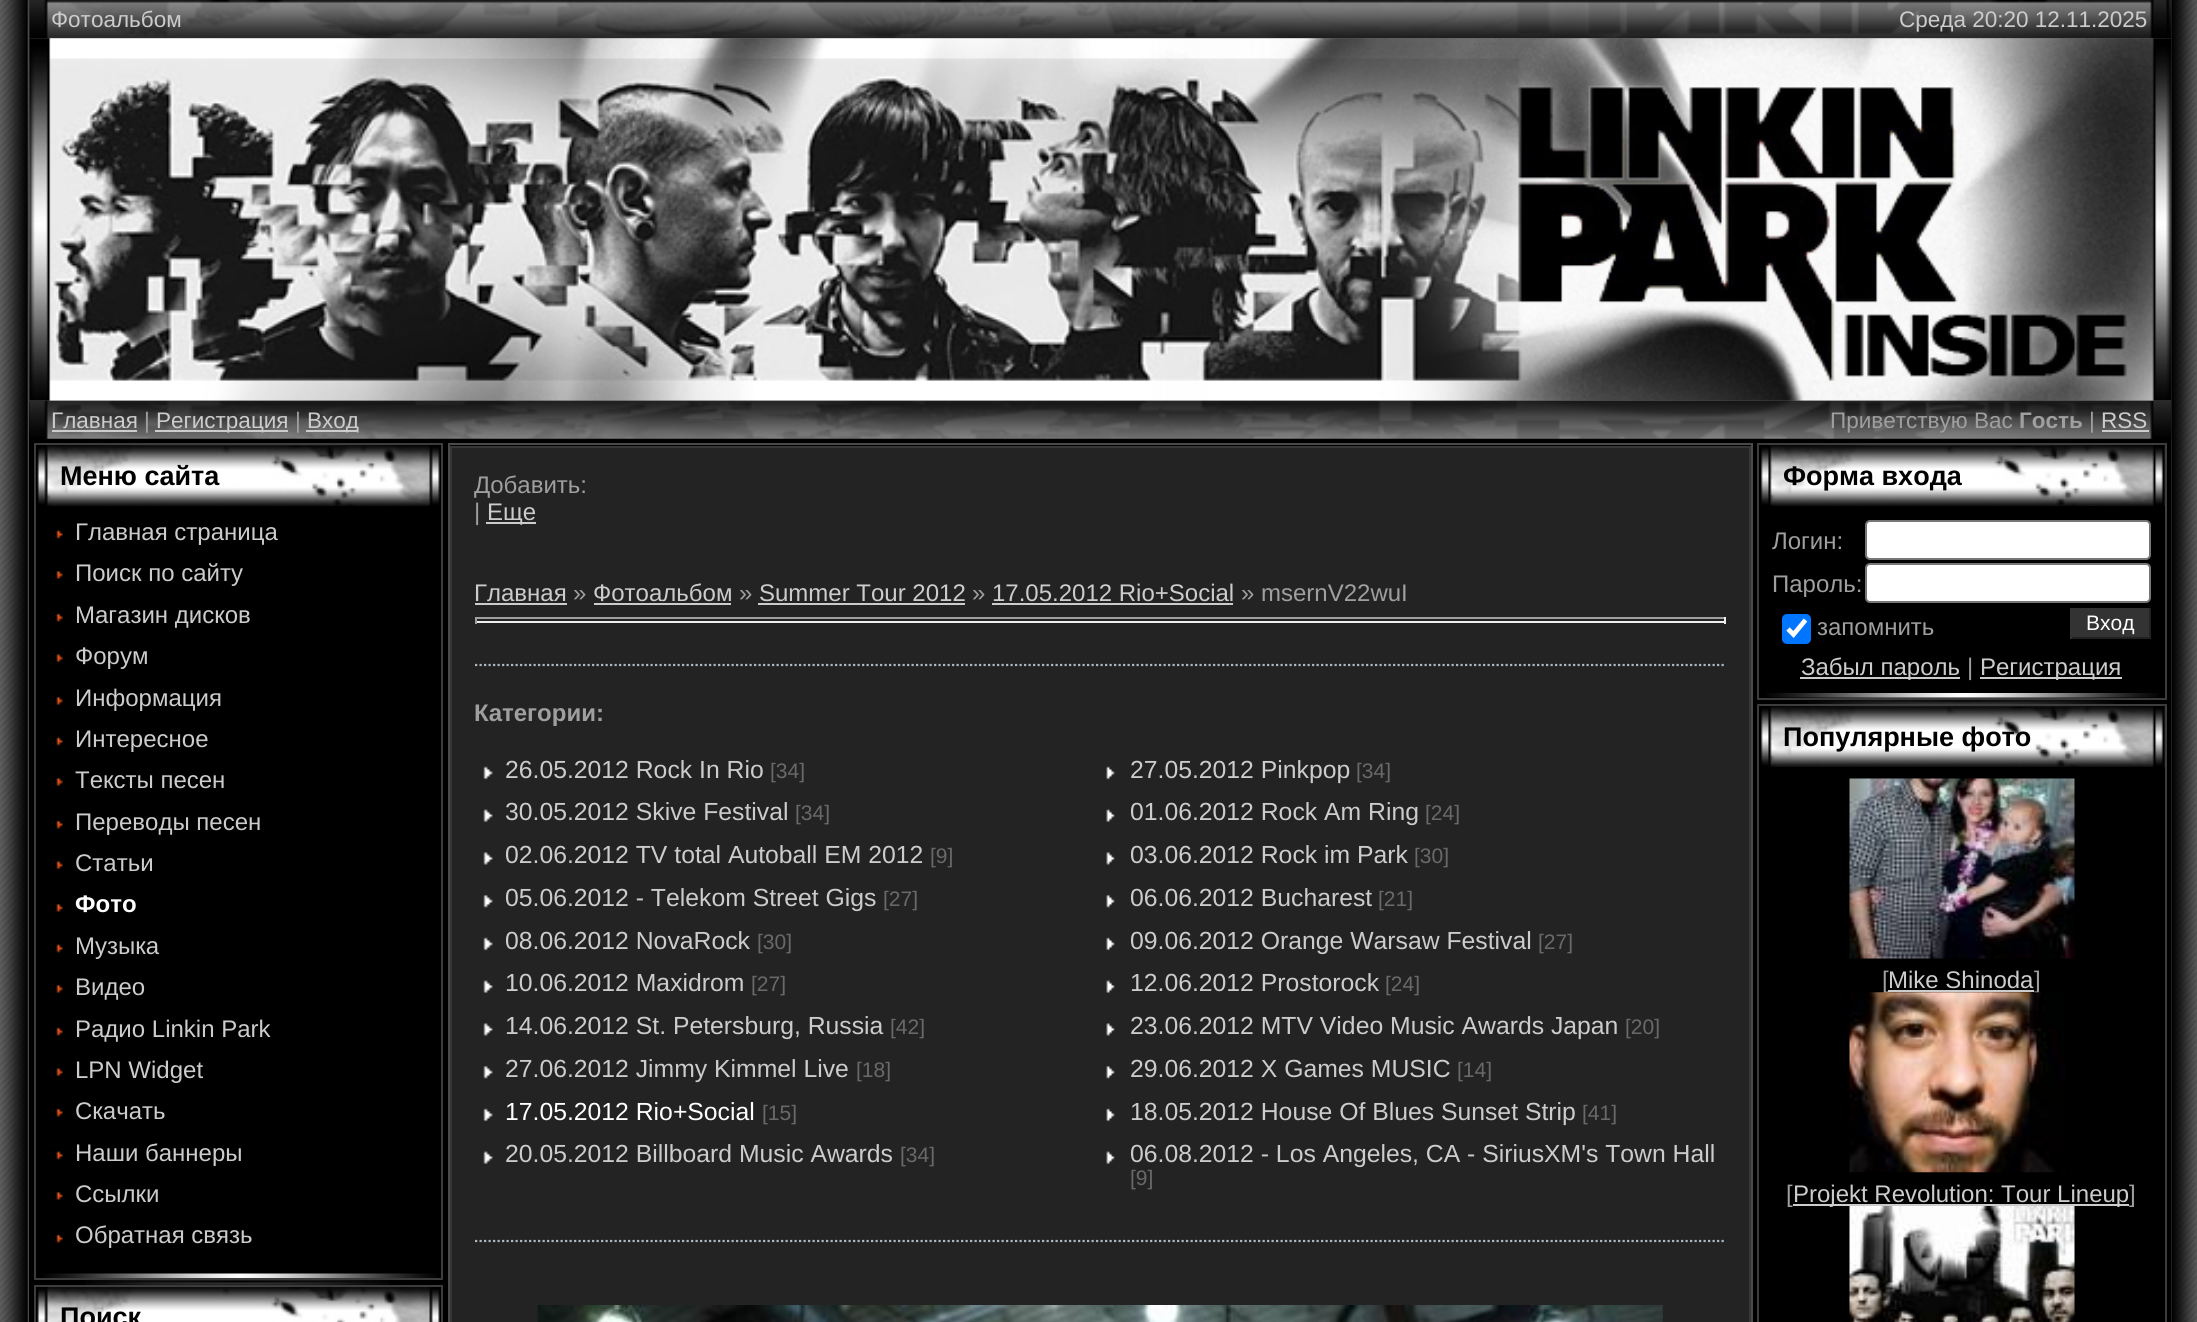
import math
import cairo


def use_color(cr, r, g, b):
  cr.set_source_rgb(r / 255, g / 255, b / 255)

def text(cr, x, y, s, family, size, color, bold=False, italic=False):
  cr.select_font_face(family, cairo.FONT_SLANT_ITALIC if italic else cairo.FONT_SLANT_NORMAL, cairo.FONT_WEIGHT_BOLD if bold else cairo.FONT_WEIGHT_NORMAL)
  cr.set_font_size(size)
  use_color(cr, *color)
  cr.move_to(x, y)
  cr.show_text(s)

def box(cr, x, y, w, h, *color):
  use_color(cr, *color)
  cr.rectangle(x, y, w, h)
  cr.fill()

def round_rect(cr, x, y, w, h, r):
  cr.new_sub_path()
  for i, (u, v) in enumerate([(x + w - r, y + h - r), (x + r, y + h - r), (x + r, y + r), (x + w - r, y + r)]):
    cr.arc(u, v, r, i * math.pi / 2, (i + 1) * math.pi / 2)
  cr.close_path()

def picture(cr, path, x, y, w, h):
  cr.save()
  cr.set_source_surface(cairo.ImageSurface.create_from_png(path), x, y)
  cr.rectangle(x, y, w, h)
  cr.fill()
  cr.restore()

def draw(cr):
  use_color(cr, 118, 118, 118)
  cr.paint()
  picture(cr, "img_01.png", 0, 0, 29, 1322)
  picture(cr, "img_02.png", 29, 0, 2143, 39)
  box(cr, 29, 401, 2142, 921, 0, 0, 0)
  picture(cr, "img_04.png", 29, 400, 2143, 39)
  picture(cr, "img_28.png", 2171, 0, 26, 1322)
  picture(cr, "img_03.png", 29, 38, 2143, 363)
  box(cr, 52, 430, 85, 2, 204, 204, 204)
  box(cr, 155, 430, 133, 2, 204, 204, 204)
  box(cr, 306, 430, 52, 2, 204, 204, 204)
  box(cr, 2102, 430, 47, 2, 204, 204, 204)
  picture(cr, "img_05.png", 85, 445, 305, 840)
  cr.rectangle(35, 444, 407, 835)
  use_color(cr, 60, 60, 60)
  cr.stroke()
  picture(cr, "img_06.png", 36, 445, 405, 61)
  box(cr, 85, 506, 305, 768, 0, 0, 0)
  picture(cr, "img_07.png", 56, 530, 7, 9)
  picture(cr, "img_08.png", 56, 571, 7, 8)
  picture(cr, "img_09.png", 56, 613, 7, 9)
  picture(cr, "img_10.png", 56, 654, 7, 9)
  picture(cr, "img_08.png", 56, 697, 7, 8)
  picture(cr, "img_07.png", 56, 737, 7, 9)
  picture(cr, "img_08.png", 56, 778, 7, 8)
  picture(cr, "img_09.png", 56, 820, 7, 9)
  picture(cr, "img_10.png", 56, 861, 7, 9)
  picture(cr, "img_08.png", 56, 904, 7, 8)
  picture(cr, "img_07.png", 56, 944, 7, 9)
  picture(cr, "img_08.png", 56, 985, 7, 8)
  picture(cr, "img_09.png", 56, 1027, 7, 9)
  picture(cr, "img_10.png", 56, 1068, 7, 9)
  picture(cr, "img_09.png", 56, 1108, 7, 9)
  picture(cr, "img_07.png", 56, 1151, 7, 9)
  picture(cr, "img_08.png", 56, 1192, 7, 8)
  picture(cr, "img_09.png", 56, 1234, 7, 9)
  picture(cr, "img_11.png", 44, 1273, 392, 5)
  cr.rectangle(35, 1286, 407, 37)
  use_color(cr, 60, 60, 60)
  cr.stroke()
  picture(cr, "img_12.png", 36, 1287, 405, 35)
  cr.rectangle(449, 444, 1303, 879)
  use_color(cr, 73, 73, 73)
  cr.stroke()
  use_color(cr, 35, 35, 35)
  cr.rectangle(451, 447, 1299, 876)
  cr.fill_preserve()
  use_color(cr, 54, 54, 54)
  cr.stroke()
  box(cr, 486, 522, 50, 2, 204, 204, 204)
  box(cr, 475, 603, 92, 2, 204, 204, 204)
  box(cr, 594, 603, 137, 2, 204, 204, 204)
  box(cr, 758, 603, 207, 2, 204, 204, 204)
  box(cr, 992, 603, 241, 2, 204, 204, 204)
  box(cr, 475, 617, 1251, 2, 159, 159, 159)
  box(cr, 1724, 617, 2, 7, 238, 238, 238)
  box(cr, 475, 621, 1251, 2, 238, 238, 238)
  box(cr, 475, 617, 2, 7, 159, 159, 159)
  cr.new_path()
  cr.move_to(475, 665)
  cr.line_to(1726, 665)
  use_color(cr, 169, 184, 194)
  cr.set_line_width(2.2)
  cr.set_dash([2.25, 2.25])
  cr.stroke()
  cr.new_path()
  cr.move_to(475, 1241)
  cr.line_to(1726, 1241)
  cr.stroke()
  picture(cr, "img_13.png", 483, 766, 10, 14)
  picture(cr, "img_14.png", 1106, 766, 9, 14)
  picture(cr, "img_15.png", 483, 809, 10, 13)
  picture(cr, "img_16.png", 1106, 809, 9, 13)
  picture(cr, "img_17.png", 483, 852, 10, 13)
  picture(cr, "img_18.png", 1106, 852, 9, 13)
  picture(cr, "img_19.png", 483, 895, 10, 13)
  picture(cr, "img_20.png", 1106, 895, 9, 13)
  picture(cr, "img_13.png", 483, 937, 10, 14)
  picture(cr, "img_14.png", 1106, 937, 9, 14)
  picture(cr, "img_15.png", 483, 980, 10, 13)
  picture(cr, "img_16.png", 1106, 980, 9, 13)
  picture(cr, "img_17.png", 483, 1023, 10, 13)
  picture(cr, "img_18.png", 1106, 1023, 9, 13)
  picture(cr, "img_19.png", 483, 1066, 10, 13)
  picture(cr, "img_20.png", 1106, 1066, 9, 13)
  picture(cr, "img_13.png", 483, 1108, 10, 14)
  picture(cr, "img_14.png", 1106, 1108, 9, 14)
  picture(cr, "img_15.png", 483, 1151, 10, 13)
  picture(cr, "img_16.png", 1106, 1151, 9, 13)
  picture(cr, "img_21.png", 537, 1305, 1126, 17)
  picture(cr, "img_22.png", 1808, 445, 306, 262)
  cr.rectangle(1758, 444, 408, 255)
  use_color(cr, 60, 60, 60)
  cr.set_line_width(2)
  cr.set_dash([])
  cr.stroke()
  box(cr, 2164, 446, 1, 60, 37, 37, 37)
  picture(cr, "img_23.png", 1760, 445, 405, 61)
  box(cr, 1808, 506, 306, 187, 0, 0, 0)
  use_color(cr, 255, 255, 255)
  round_rect(cr, 1866, 521, 284, 38, 4)
  cr.fill_preserve()
  use_color(cr, 118, 118, 118)
  cr.stroke()
  use_color(cr, 255, 255, 255)
  round_rect(cr, 1866, 564, 284, 38, 4)
  cr.fill_preserve()
  use_color(cr, 118, 118, 118)
  cr.stroke()
  use_color(cr, 0, 117, 255)
  round_rect(cr, 1782, 614, 29, 30, 5)
  cr.fill()
  cr.new_path()
  cr.move_to(1788, 629)
  cr.line_to(1793.5, 634.5)
  cr.line_to(1805.5, 620)
  use_color(cr, 255, 255, 255)
  cr.set_line_width(4.7)
  cr.stroke()
  box(cr, 2072, 608, 77, 29, 51, 51, 51)
  box(cr, 2149, 608, 2, 31, 34, 34, 34)
  box(cr, 2070, 637, 81, 2, 34, 34, 34)
  box(cr, 2070, 608, 2, 31, 51, 51, 51)
  box(cr, 1800, 677, 160, 2, 204, 204, 204)
  box(cr, 1980, 677, 142, 2, 204, 204, 204)
  picture(cr, "img_24.png", 1767, 693, 392, 5)
  cr.rectangle(1758, 705, 408, 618)
  use_color(cr, 60, 60, 60)
  cr.set_line_width(2)
  cr.stroke()
  box(cr, 2164, 707, 1, 60, 37, 37, 37)
  picture(cr, "img_23.png", 1760, 706, 405, 61)
  picture(cr, "img_25.png", 1849, 778, 226, 181)
  box(cr, 1793, 1204, 336, 2, 204, 204, 204)
  text(cr, 51, 27, "Фотоальбом", "Liberation Sans", 22.5, (204, 204, 204))
  text(cr, 1899, 27, "Среда 20:20 12.11.2025", "Liberation Sans", 22.5, (204, 204, 204))
  text(cr, 51, 428, "Главная", "Liberation Sans", 22.5, (204, 204, 204))
  text(cr, 144, 428, "|", "Liberation Sans", 22.5, (159, 159, 159))
  text(cr, 156, 428, "Регистрация", "Liberation Sans", 22.5, (204, 204, 204))
  text(cr, 295, 428, "|", "Liberation Sans", 22.5, (159, 159, 159))
  text(cr, 307, 428, "Вход", "Liberation Sans", 22.5, (204, 204, 204))
  text(cr, 1830, 428, "Приветствую Вас", "Liberation Sans", 22.5, (159, 159, 159))
  text(cr, 2019, 428, "Гость", "Liberation Sans", 22.5, (159, 159, 159), bold=True)
  text(cr, 2089, 428, "|", "Liberation Sans", 22.5, (159, 159, 159))
  text(cr, 2101, 428, "RSS", "Liberation Sans", 22.5, (204, 204, 204))
  text(cr, 60, 485, "Меню сайта", "Liberation Sans", 27, (0, 0, 0), bold=True)
  text(cr, 75, 540, "Главная страница", "Liberation Sans", 24, (204, 204, 204))
  text(cr, 75, 581, "Поиск по сайту", "Liberation Sans", 24, (204, 204, 204))
  text(cr, 75, 623, "Магазин дисков", "Liberation Sans", 24, (204, 204, 204))
  text(cr, 75, 664, "Форум", "Liberation Sans", 24, (204, 204, 204))
  text(cr, 75, 706, "Информация", "Liberation Sans", 24, (204, 204, 204))
  text(cr, 75, 747, "Интересное", "Liberation Sans", 24, (204, 204, 204))
  text(cr, 75, 788, "Тексты песен", "Liberation Sans", 24, (204, 204, 204))
  text(cr, 75, 830, "Переводы песен", "Liberation Sans", 24, (204, 204, 204))
  text(cr, 75, 871, "Статьи", "Liberation Sans", 24, (204, 204, 204))
  text(cr, 75, 912, "Фото", "Liberation Sans", 24, (255, 255, 255), bold=True)
  text(cr, 75, 954, "Музыка", "Liberation Sans", 24, (204, 204, 204))
  text(cr, 75, 995, "Видео", "Liberation Sans", 24, (204, 204, 204))
  text(cr, 75, 1037, "Радио Linkin Park", "Liberation Sans", 24, (204, 204, 204))
  text(cr, 75, 1078, "LPN Widget", "Liberation Sans", 24, (204, 204, 204))
  text(cr, 75, 1119, "Скачать", "Liberation Sans", 24, (204, 204, 204))
  text(cr, 75, 1161, "Наши баннеры", "Liberation Sans", 24, (204, 204, 204))
  text(cr, 75, 1202, "Ссылки", "Liberation Sans", 24, (204, 204, 204))
  text(cr, 75, 1243, "Обратная связь", "Liberation Sans", 24, (204, 204, 204))
  text(cr, 60, 1326, "Поиск", "Liberation Sans", 27, (0, 0, 0), bold=True)
  text(cr, 474, 493, "Добавить:", "Liberation Sans", 24, (159, 159, 159))
  text(cr, 474, 520, "|", "Liberation Sans", 24, (159, 159, 159))
  text(cr, 487, 520, "Еще", "Liberation Sans", 24, (204, 204, 204))
  text(cr, 474, 601, "Главная", "Liberation Sans", 24, (204, 204, 204))
  text(cr, 573, 601, "»", "Liberation Sans", 24, (159, 159, 159))
  text(cr, 593, 601, "Фотоальбом", "Liberation Sans", 24, (204, 204, 204))
  text(cr, 739, 601, "»", "Liberation Sans", 24, (159, 159, 159))
  text(cr, 759, 601, "Summer Tour 2012", "Liberation Sans", 24, (204, 204, 204))
  text(cr, 972, 601, "»", "Liberation Sans", 24, (159, 159, 159))
  text(cr, 992, 601, "17.05.2012 Rio+Social", "Liberation Sans", 24, (204, 204, 204))
  text(cr, 1241, 601, "» msernV22wuI", "Liberation Sans", 24, (159, 159, 159))
  text(cr, 474, 721, "Категории:", "Liberation Sans", 24, (159, 159, 159), bold=True)
  text(cr, 505, 778, "26.05.2012 Rock In Rio", "Liberation Sans", 24.75, (204, 204, 204))
  text(cr, 770, 778, "[34]", "Liberation Sans", 21, (105, 105, 105))
  text(cr, 1130, 778, "27.05.2012 Pinkpop", "Liberation Sans", 24.75, (204, 204, 204))
  text(cr, 1356, 778, "[34]", "Liberation Sans", 21, (105, 105, 105))
  text(cr, 505, 820, "30.05.2012 Skive Festival", "Liberation Sans", 24.75, (204, 204, 204))
  text(cr, 795, 820, "[34]", "Liberation Sans", 21, (105, 105, 105))
  text(cr, 1130, 820, "01.06.2012 Rock Am Ring", "Liberation Sans", 24.75, (204, 204, 204))
  text(cr, 1425, 820, "[24]", "Liberation Sans", 21, (105, 105, 105))
  text(cr, 505, 863, "02.06.2012 TV total Autoball EM 2012", "Liberation Sans", 24.75, (204, 204, 204))
  text(cr, 930, 863, "[9]", "Liberation Sans", 21, (105, 105, 105))
  text(cr, 1130, 863, "03.06.2012 Rock im Park", "Liberation Sans", 24.75, (204, 204, 204))
  text(cr, 1414, 863, "[30]", "Liberation Sans", 21, (105, 105, 105))
  text(cr, 505, 906, "05.06.2012 - Telekom Street Gigs", "Liberation Sans", 24.75, (204, 204, 204))
  text(cr, 883, 906, "[27]", "Liberation Sans", 21, (105, 105, 105))
  text(cr, 1130, 906, "06.06.2012 Bucharest", "Liberation Sans", 24.75, (204, 204, 204))
  text(cr, 1378, 906, "[21]", "Liberation Sans", 21, (105, 105, 105))
  text(cr, 505, 949, "08.06.2012 NovaRock", "Liberation Sans", 24.75, (204, 204, 204))
  text(cr, 757, 949, "[30]", "Liberation Sans", 21, (105, 105, 105))
  text(cr, 1130, 949, "09.06.2012 Orange Warsaw Festival", "Liberation Sans", 24.75, (204, 204, 204))
  text(cr, 1538, 949, "[27]", "Liberation Sans", 21, (105, 105, 105))
  text(cr, 505, 991, "10.06.2012 Maxidrom", "Liberation Sans", 24.75, (204, 204, 204))
  text(cr, 751, 991, "[27]", "Liberation Sans", 21, (105, 105, 105))
  text(cr, 1130, 991, "12.06.2012 Prostorock", "Liberation Sans", 24.75, (204, 204, 204))
  text(cr, 1385, 991, "[24]", "Liberation Sans", 21, (105, 105, 105))
  text(cr, 505, 1034, "14.06.2012 St. Petersburg, Russia", "Liberation Sans", 24.75, (204, 204, 204))
  text(cr, 890, 1034, "[42]", "Liberation Sans", 21, (105, 105, 105))
  text(cr, 1130, 1034, "23.06.2012 MTV Video Music Awards Japan", "Liberation Sans", 24.75, (204, 204, 204))
  text(cr, 1625, 1034, "[20]", "Liberation Sans", 21, (105, 105, 105))
  text(cr, 505, 1077, "27.06.2012 Jimmy Kimmel Live", "Liberation Sans", 24.75, (204, 204, 204))
  text(cr, 856, 1077, "[18]", "Liberation Sans", 21, (105, 105, 105))
  text(cr, 1130, 1077, "29.06.2012 X Games MUSIC", "Liberation Sans", 24.75, (204, 204, 204))
  text(cr, 1457, 1077, "[14]", "Liberation Sans", 21, (105, 105, 105))
  text(cr, 505, 1120, "17.05.2012 Rio+Social", "Liberation Sans", 24.75, (255, 255, 255))
  text(cr, 762, 1120, "[15]", "Liberation Sans", 21, (105, 105, 105))
  text(cr, 1130, 1120, "18.05.2012 House Of Blues Sunset Strip", "Liberation Sans", 24.75, (204, 204, 204))
  text(cr, 1582, 1120, "[41]", "Liberation Sans", 21, (105, 105, 105))
  text(cr, 505, 1162, "20.05.2012 Billboard Music Awards", "Liberation Sans", 24.75, (204, 204, 204))
  text(cr, 900, 1162, "[34]", "Liberation Sans", 21, (105, 105, 105))
  text(cr, 1130, 1162, "06.08.2012 - Los Angeles, CA - SiriusXM's Town Hall", "Liberation Sans", 24.75, (204, 204, 204))
  text(cr, 1130, 1185, "[9]", "Liberation Sans", 21, (105, 105, 105))
  text(cr, 1783, 485, "Форма входа", "Liberation Sans", 27, (0, 0, 0), bold=True)
  text(cr, 1772, 549, "Логин:", "Liberation Sans", 24, (159, 159, 159))
  text(cr, 1772, 592, "Пароль:", "Liberation Sans", 24, (159, 159, 159))
  text(cr, 1817, 635, "запомнить", "Liberation Sans", 24, (159, 159, 159))
  text(cr, 2086, 630, "Вход", "Liberation Sans", 21, (255, 255, 255))
  text(cr, 1801, 675, "Забыл пароль", "Liberation Sans", 24, (204, 204, 204))
  text(cr, 1967, 675, "|", "Liberation Sans", 24, (159, 159, 159))
  text(cr, 1980, 675, "Регистрация", "Liberation Sans", 24, (204, 204, 204))
  text(cr, 1783, 746, "Популярные фото", "Liberation Sans", 27, (0, 0, 0), bold=True)
  text(cr, 1882, 988, "[", "Liberation Sans", 24, (159, 159, 159))
  text(cr, 1888, 988, "Mike Shinoda", "Liberation Sans", 24, (204, 204, 204))
  box(cr, 1888, 990, 146, 2, 204, 204, 204)
  text(cr, 2034, 988, "]", "Liberation Sans", 24, (159, 159, 159))
  picture(cr, "img_26.png", 1849, 992, 216, 181)
  text(cr, 1786, 1202, "[", "Liberation Sans", 24, (159, 159, 159))
  text(cr, 1793, 1202, "Projekt Revolution: Tour Lineup", "Liberation Sans", 24, (204, 204, 204))
  text(cr, 2129, 1202, "]", "Liberation Sans", 24, (159, 159, 159))
  picture(cr, "img_27.png", 1849, 1206, 226, 116)


surface = cairo.ImageSurface(cairo.FORMAT_RGB24, 2197, 1322)
cr = cairo.Context(surface)
options = cairo.FontOptions()
options.set_hint_metrics(cairo.HINT_METRICS_OFF)
options.set_hint_style(cairo.HINT_STYLE_NONE)
cr.set_font_options(options)
cr.set_miter_limit(4)
draw(cr)
surface.write_to_png("out.png")
